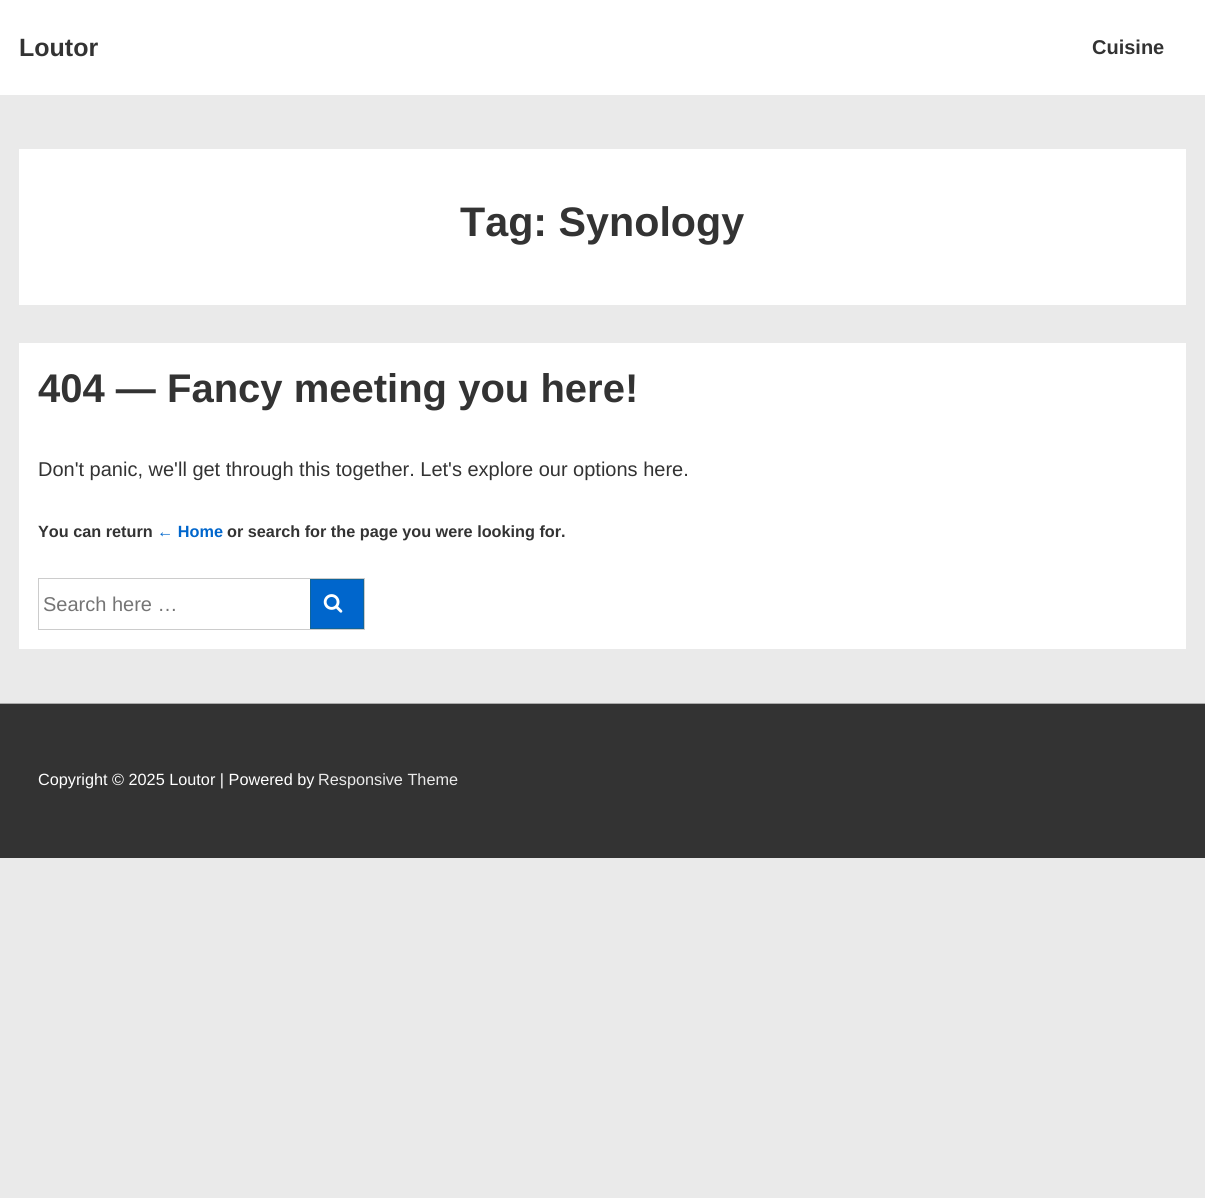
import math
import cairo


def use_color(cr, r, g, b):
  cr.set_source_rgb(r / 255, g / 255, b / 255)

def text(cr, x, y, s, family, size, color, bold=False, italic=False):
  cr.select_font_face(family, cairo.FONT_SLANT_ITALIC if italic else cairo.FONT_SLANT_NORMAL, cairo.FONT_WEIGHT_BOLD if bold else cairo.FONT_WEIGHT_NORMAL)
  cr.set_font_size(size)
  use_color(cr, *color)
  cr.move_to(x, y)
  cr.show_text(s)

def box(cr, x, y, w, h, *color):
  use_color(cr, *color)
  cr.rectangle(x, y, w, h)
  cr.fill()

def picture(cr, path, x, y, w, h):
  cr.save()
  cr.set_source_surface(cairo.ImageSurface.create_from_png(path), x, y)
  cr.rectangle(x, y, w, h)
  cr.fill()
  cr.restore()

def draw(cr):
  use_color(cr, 234, 234, 234)
  cr.paint()
  box(cr, 0, 0, 1205, 95, 255, 255, 255)
  box(cr, 19, 149, 1167, 156, 255, 255, 255)
  box(cr, 19, 343, 1167, 306, 255, 255, 255)
  cr.rectangle(38.5, 578.5, 326, 51)
  use_color(cr, 204, 204, 204)
  cr.set_line_width(1)
  cr.stroke()
  use_color(cr, 0, 102, 204)
  cr.rectangle(310.5, 579.5, 53, 49)
  cr.fill_preserve()
  use_color(cr, 16, 101, 156)
  cr.stroke()
  picture(cr, "img_01.png", 323, 594, 20, 19)
  box(cr, 0, 704, 1205, 154, 51, 51, 51)
  box(cr, 0, 703, 1205, 1, 170, 170, 170)
  text(cr, 19, 56, "Loutor", "Liberation Sans", 25, (51, 51, 51), bold=True)
  text(cr, 1092, 54, "Cuisine", "Liberation Sans", 20, (51, 51, 51), bold=True)
  text(cr, 460, 236, "Tag: Synology", "Liberation Sans", 41.25, (51, 51, 51), bold=True)
  text(cr, 38, 402, "404 — Fancy meeting you here!", "Liberation Sans", 40, (51, 51, 51), bold=True)
  text(cr, 38, 476, "Don't panic, we'll get through this together. Let's explore our options here.", "Liberation Sans", 20, (51, 51, 51))
  text(cr, 38, 537, "You can return", "Liberation Sans", 16.25, (51, 51, 51), bold=True)
  text(cr, 157, 537, "← Home", "Liberation Sans", 16.25, (0, 102, 204), bold=True)
  text(cr, 227, 537, "or search for the page you were looking for.", "Liberation Sans", 16.25, (51, 51, 51), bold=True)
  text(cr, 43, 611, "Search here …", "Liberation Sans", 20, (117, 117, 117))
  text(cr, 38, 785, "Copyright © 2025 Loutor | Powered by", "Liberation Sans", 16.25, (255, 255, 255))
  text(cr, 318, 785, "Responsive Theme", "Liberation Sans", 16.25, (234, 234, 234))


surface = cairo.ImageSurface(cairo.FORMAT_RGB24, 1205, 1198)
cr = cairo.Context(surface)
options = cairo.FontOptions()
options.set_hint_metrics(cairo.HINT_METRICS_OFF)
options.set_hint_style(cairo.HINT_STYLE_NONE)
cr.set_font_options(options)
cr.set_miter_limit(4)
draw(cr)
surface.write_to_png("out.png")
